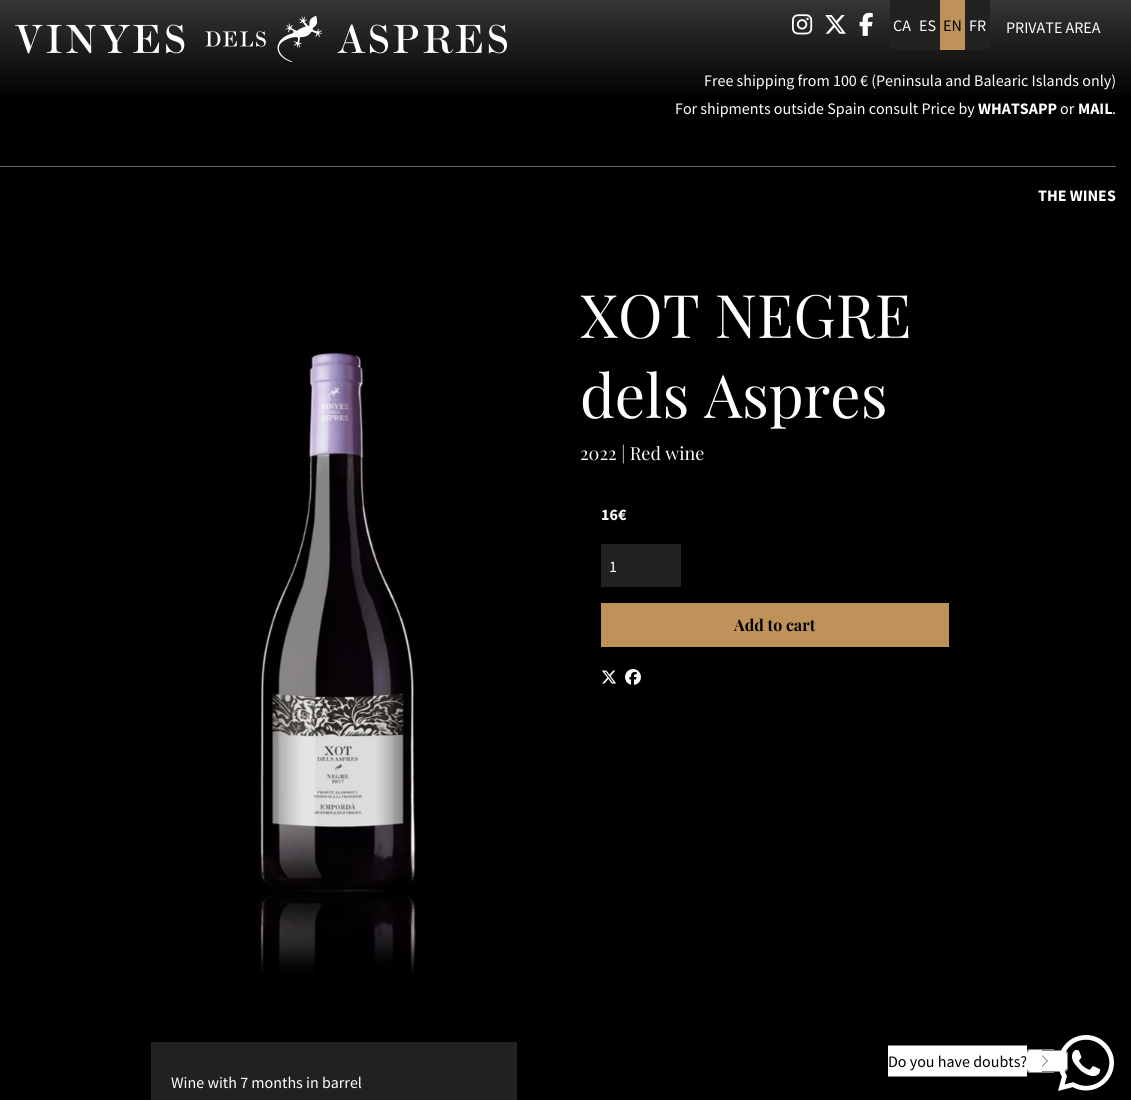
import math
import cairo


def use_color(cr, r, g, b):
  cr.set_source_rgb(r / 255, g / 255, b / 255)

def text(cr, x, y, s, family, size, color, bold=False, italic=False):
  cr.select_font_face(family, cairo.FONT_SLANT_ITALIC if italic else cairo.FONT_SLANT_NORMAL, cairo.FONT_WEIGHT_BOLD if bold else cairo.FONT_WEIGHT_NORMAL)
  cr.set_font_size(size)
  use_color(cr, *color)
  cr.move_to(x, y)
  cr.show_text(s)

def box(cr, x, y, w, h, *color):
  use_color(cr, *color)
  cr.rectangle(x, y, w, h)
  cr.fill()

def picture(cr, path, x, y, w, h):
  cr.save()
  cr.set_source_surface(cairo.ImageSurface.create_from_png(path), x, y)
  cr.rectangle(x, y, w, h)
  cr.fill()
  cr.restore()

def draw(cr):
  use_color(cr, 0, 0, 0)
  cr.paint()
  gradient = cairo.LinearGradient(566, 0, 566, 100)
  gradient.add_color_stop_rgba(0, 0.208, 0.208, 0.208, 1)
  gradient.add_color_stop_rgba(1, 0, 0, 0, 1)
  cr.set_source(gradient)
  cr.rectangle(0, 0, 1131, 95)
  cr.fill()
  picture(cr, "img_01.png", 15, 16, 492, 46)
  picture(cr, "img_02.png", 792, 14, 21, 21)
  picture(cr, "img_03.png", 825, 15, 21, 19)
  picture(cr, "img_04.png", 859, 12, 14, 24)
  box(cr, 890, 0, 50, 50, 33, 33, 33)
  box(cr, 940, 0, 25, 50, 191, 146, 90)
  box(cr, 965, 0, 25, 50, 33, 33, 33)
  box(cr, 0, 166, 1116, 1, 102, 102, 102)
  box(cr, 601, 544, 80, 43, 33, 33, 33)
  box(cr, 601, 603, 348, 44, 191, 146, 90)
  picture(cr, "img_05.png", 602, 670, 15, 14)
  picture(cr, "img_06.png", 625, 669, 16, 16)
  picture(cr, "img_07.png", 256, 352, 161, 623)
  box(cr, 151, 1042, 366, 58, 33, 33, 33)
  use_color(cr, 255, 255, 255)
  cr.new_path()
  cr.move_to(1031, 1049)
  cr.line_to(1054, 1049)
  cr.line_to(1054, 1073)
  cr.line_to(1031, 1073)
  cr.curve_to(1028, 1073, 1026, 1071, 1026, 1068)
  cr.line_to(1026, 1054)
  cr.curve_to(1026, 1051, 1028, 1049, 1031, 1049)
  cr.close_path()
  cr.fill()
  use_color(cr, 128, 128, 128)
  cr.set_fill_rule(cairo.FILL_RULE_EVEN_ODD)
  cr.new_path()
  cr.move_to(1031, 1049)
  cr.line_to(1054, 1049)
  cr.line_to(1054, 1073)
  cr.line_to(1031, 1073)
  cr.curve_to(1028, 1073, 1026, 1071, 1026, 1068)
  cr.line_to(1026, 1054)
  cr.curve_to(1026, 1051, 1028, 1049, 1031, 1049)
  cr.close_path()
  cr.move_to(1031, 1050)
  cr.line_to(1054, 1050)
  cr.line_to(1054, 1072)
  cr.line_to(1031, 1072)
  cr.curve_to(1029, 1072, 1027, 1070, 1027, 1068)
  cr.line_to(1027, 1054)
  cr.curve_to(1027, 1052, 1029, 1050, 1031, 1050)
  cr.close_path()
  cr.fill()
  box(cr, 888, 1046, 139, 30, 255, 255, 255)
  box(cr, 888, 1045, 139, 1, 128, 128, 128)
  box(cr, 888, 1076, 139, 1, 128, 128, 128)
  use_color(cr, 255, 255, 255)
  cr.new_path()
  cr.move_to(1042, 1050)
  cr.line_to(1063, 1050)
  cr.curve_to(1066, 1050, 1068, 1052, 1068, 1055)
  cr.line_to(1068, 1067)
  cr.curve_to(1068, 1070, 1066, 1072, 1063, 1072)
  cr.line_to(1042, 1072)
  cr.close_path()
  cr.fill()
  use_color(cr, 128, 128, 128)
  cr.new_path()
  cr.move_to(1042, 1050)
  cr.line_to(1063, 1050)
  cr.curve_to(1066, 1050, 1068, 1052, 1068, 1055)
  cr.line_to(1068, 1067)
  cr.curve_to(1068, 1070, 1066, 1072, 1063, 1072)
  cr.line_to(1042, 1072)
  cr.close_path()
  cr.move_to(1042, 1051)
  cr.line_to(1063, 1051)
  cr.curve_to(1065, 1051, 1067, 1053, 1067, 1055)
  cr.line_to(1067, 1067)
  cr.curve_to(1067, 1069, 1065, 1071, 1063, 1071)
  cr.line_to(1042, 1071)
  cr.close_path()
  cr.fill()
  use_color(cr, 89, 89, 89)
  cr.set_fill_rule(cairo.FILL_RULE_WINDING)
  cr.new_path()
  cr.move_to(1042, 1067)
  cr.line_to(1042, 1055)
  cr.line_to(1048, 1061)
  cr.close_path()
  cr.fill()
  use_color(cr, 255, 255, 255)
  cr.new_path()
  cr.move_to(1042, 1066)
  cr.line_to(1042, 1056)
  cr.line_to(1047, 1061)
  cr.close_path()
  cr.fill()
  picture(cr, "img_08.png", 1058, 1035, 56, 56)
  text(cr, 893, 31, "CA", "Source Sans Pro", 16, (255, 255, 255))
  text(cr, 919, 31, "ES", "Source Sans Pro", 16, (255, 255, 255))
  text(cr, 943, 31, "EN", "Source Sans Pro", 16, (0, 0, 0))
  text(cr, 969, 31, "FR", "Source Sans Pro", 16, (255, 255, 255))
  text(cr, 1006, 33, "PRIVATE AREA", "Source Sans Pro", 16, (255, 255, 255))
  text(cr, 704, 86, "Free shipping from 100 € (Peninsula and Balearic Islands only)", "Source Sans Pro", 16, (255, 255, 255))
  text(cr, 675, 114, "For shipments outside Spain consult Price by", "Source Sans Pro", 16, (255, 255, 255))
  text(cr, 978, 114, "WHATSAPP", "Source Sans Pro", 16, (255, 255, 255), bold=True)
  text(cr, 1060, 114, "or", "Source Sans Pro", 16, (255, 255, 255))
  text(cr, 1078, 114, "MAIL", "Source Sans Pro", 16, (255, 255, 255), bold=True)
  text(cr, 1112, 114, ".", "Source Sans Pro", 16, (255, 255, 255))
  text(cr, 1038, 201, "THE WINES", "Source Sans Pro", 16, (255, 255, 255), bold=True)
  text(cr, 580, 338, "XOT NEGRE", "Playfair Display", 60, (255, 255, 255))
  text(cr, 580, 418, "dels Aspres", "Playfair Display", 60, (255, 255, 255))
  text(cr, 580, 460, "2022 | Red wine", "Playfair Display", 18, (255, 255, 255))
  text(cr, 601, 520, "16€", "Source Sans Pro", 16, (255, 255, 255), bold=True)
  text(cr, 609, 572, "1", "Source Sans Pro", 16, (255, 255, 255))
  text(cr, 734, 631, "Add to cart", "Playfair Display", 16, (0, 0, 0), bold=True)
  text(cr, 171, 1088, "Wine with 7 months in barrel", "Source Sans Pro", 16, (255, 255, 255))
  text(cr, 888, 1067, "Do you have doubts?", "Source Sans Pro", 16, (0, 0, 0))


surface = cairo.ImageSurface(cairo.FORMAT_RGB24, 1131, 1100)
cr = cairo.Context(surface)
options = cairo.FontOptions()
options.set_hint_metrics(cairo.HINT_METRICS_OFF)
options.set_hint_style(cairo.HINT_STYLE_NONE)
cr.set_font_options(options)
cr.set_miter_limit(4)
draw(cr)
surface.write_to_png("out.png")
